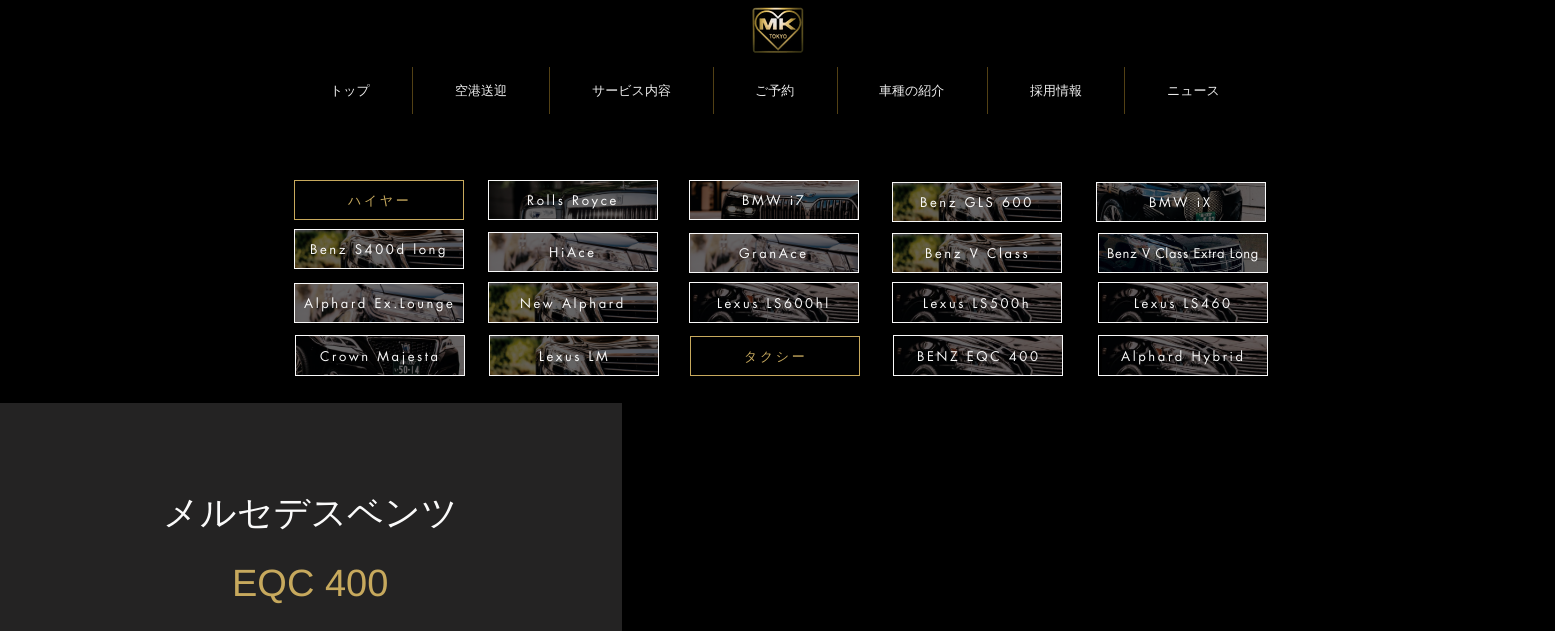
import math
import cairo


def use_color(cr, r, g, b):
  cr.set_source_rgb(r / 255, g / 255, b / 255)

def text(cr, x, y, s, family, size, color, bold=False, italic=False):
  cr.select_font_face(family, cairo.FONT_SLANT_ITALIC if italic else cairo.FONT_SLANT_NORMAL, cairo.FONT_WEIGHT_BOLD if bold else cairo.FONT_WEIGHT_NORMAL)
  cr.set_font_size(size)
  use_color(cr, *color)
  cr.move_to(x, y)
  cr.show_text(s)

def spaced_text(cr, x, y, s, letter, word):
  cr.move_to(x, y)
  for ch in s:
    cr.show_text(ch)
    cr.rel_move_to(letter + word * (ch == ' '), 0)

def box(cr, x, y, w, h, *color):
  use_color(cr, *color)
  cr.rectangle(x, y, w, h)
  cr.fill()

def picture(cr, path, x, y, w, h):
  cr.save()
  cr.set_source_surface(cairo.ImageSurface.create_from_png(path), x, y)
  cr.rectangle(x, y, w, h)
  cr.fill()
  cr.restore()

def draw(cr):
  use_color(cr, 0, 0, 0)
  cr.paint()
  picture(cr, "img_01.png", 752, 7, 52, 46)
  box(cr, 412, 67, 1, 47, 82, 64, 20)
  box(cr, 549, 67, 1, 47, 82, 64, 20)
  box(cr, 713, 67, 1, 47, 82, 64, 20)
  box(cr, 837, 67, 1, 47, 82, 64, 20)
  box(cr, 987, 67, 1, 47, 82, 64, 20)
  box(cr, 1124, 67, 1, 47, 82, 64, 20)
  cr.rectangle(294.5, 180.5, 169, 39)
  use_color(cr, 199, 169, 93)
  cr.set_line_width(1)
  cr.stroke()
  picture(cr, "img_02.png", 489, 181, 168, 38)
  cr.rectangle(488.5, 180.5, 169, 39)
  use_color(cr, 250, 250, 250)
  cr.stroke()
  picture(cr, "img_03.png", 690, 181, 168, 38)
  cr.rectangle(689.5, 180.5, 169, 39)
  cr.stroke()
  picture(cr, "img_04.png", 893, 183, 168, 38)
  cr.rectangle(892.5, 182.5, 169, 39)
  cr.stroke()
  picture(cr, "img_05.png", 1097, 183, 168, 38)
  cr.rectangle(1096.5, 182.5, 169, 39)
  cr.stroke()
  picture(cr, "img_04.png", 295, 230, 168, 38)
  cr.rectangle(294.5, 229.5, 169, 39)
  cr.stroke()
  picture(cr, "img_06.png", 489, 233, 168, 38)
  cr.rectangle(488.5, 232.5, 169, 39)
  cr.stroke()
  picture(cr, "img_07.png", 690, 234, 168, 38)
  cr.rectangle(689.5, 233.5, 169, 39)
  cr.stroke()
  picture(cr, "img_04.png", 893, 234, 168, 38)
  cr.rectangle(892.5, 233.5, 169, 39)
  cr.stroke()
  picture(cr, "img_08.png", 1099, 234, 168, 38)
  cr.rectangle(1098.5, 233.5, 169, 39)
  cr.stroke()
  picture(cr, "img_09.png", 295, 284, 168, 38)
  cr.rectangle(294.5, 283.5, 169, 39)
  cr.stroke()
  picture(cr, "img_10.png", 489, 283, 168, 39)
  cr.rectangle(488.5, 282.5, 169, 40)
  cr.stroke()
  picture(cr, "img_11.png", 693, 283, 165, 39)
  cr.rectangle(689.5, 282.5, 169, 40)
  cr.stroke()
  picture(cr, "img_11.png", 896, 283, 165, 39)
  cr.rectangle(892.5, 282.5, 169, 40)
  cr.stroke()
  picture(cr, "img_11.png", 1102, 283, 165, 39)
  cr.rectangle(1098.5, 282.5, 169, 40)
  cr.stroke()
  picture(cr, "img_12.png", 296, 336, 168, 39)
  cr.rectangle(295.5, 335.5, 169, 40)
  cr.stroke()
  picture(cr, "img_13.png", 490, 336, 168, 39)
  cr.rectangle(489.5, 335.5, 169, 40)
  cr.stroke()
  cr.rectangle(690.5, 336.5, 169, 39)
  use_color(cr, 199, 169, 93)
  cr.stroke()
  picture(cr, "img_11.png", 897, 336, 165, 39)
  cr.rectangle(893.5, 335.5, 169, 40)
  use_color(cr, 250, 250, 250)
  cr.stroke()
  picture(cr, "img_11.png", 1102, 336, 165, 39)
  cr.rectangle(1098.5, 335.5, 169, 40)
  cr.stroke()
  box(cr, 0, 403, 622, 228, 36, 35, 35)
  text(cr, 330, 95, "トップ", "WenQuanYi Zen Hei Medium", 13, (237, 237, 237))
  text(cr, 455, 95, "空港送迎", "WenQuanYi Zen Hei Medium", 13, (237, 237, 237))
  text(cr, 592, 95, "サービス内容", "WenQuanYi Zen Hei Medium", 13, (237, 237, 237))
  text(cr, 755, 95, "ご予約", "WenQuanYi Zen Hei Medium", 13, (237, 237, 237))
  text(cr, 879, 95, "車種の紹介", "WenQuanYi Zen Hei Medium", 13, (237, 237, 237))
  text(cr, 1030, 95, "採用情報", "WenQuanYi Zen Hei Medium", 13, (237, 237, 237))
  text(cr, 1167, 95, "ニュース", "WenQuanYi Zen Hei Medium", 13, (237, 237, 237))
  use_color(cr, 199, 169, 93)
  spaced_text(cr, 348, 205, "ハイヤー", 2.6, 0)
  cr.select_font_face("futura")
  use_color(cr, 250, 250, 250)
  spaced_text(cr, 527, 205, "Rolls Royce", 2.6, 0)
  spaced_text(cr, 742, 205, "BMW i7", 2.6, 0)
  spaced_text(cr, 920, 207, "Benz GLS 600", 2.6, 0)
  spaced_text(cr, 1149, 207, "BMW iX", 2.6, 0)
  spaced_text(cr, 310, 254, "Benz S400d long", 2.6, 0)
  spaced_text(cr, 549, 257, "HiAce", 2.6, 0)
  spaced_text(cr, 739, 258, "GranAce", 2.6, 0)
  spaced_text(cr, 925, 258, "Benz V Class", 2.6, 0)
  spaced_text(cr, 1107, 258, "Benz V Class Extra Long", 0.65, 0)
  spaced_text(cr, 304, 308, "Alphard Ex.Lounge", 2.6, 0)
  spaced_text(cr, 520, 308, "New Alphard", 2.6, 0)
  spaced_text(cr, 717, 308, "Lexus LS600hl", 2.6, 0)
  spaced_text(cr, 923, 308, "Lexus LS500h", 2.6, 0)
  spaced_text(cr, 1134, 308, "Lexus LS460", 2.6, 0)
  spaced_text(cr, 320, 361, "Crown Majesta", 2.6, 0)
  spaced_text(cr, 539, 361, "Lexus LM", 2.6, 0)
  cr.select_font_face("WenQuanYi Zen Hei Medium")
  use_color(cr, 199, 169, 93)
  spaced_text(cr, 744, 361, "タクシー", 2.6, 0)
  cr.select_font_face("futura")
  use_color(cr, 250, 250, 250)
  spaced_text(cr, 917, 361, "BENZ EQC 400", 2.6, 0)
  spaced_text(cr, 1121, 361, "Alphard Hybrid", 2.6, 0)
  text(cr, 163, 525, "メルセデスベンツ", "WenQuanYi Zen Hei Medium", 36, (250, 250, 250))
  text(cr, 232, 596, "EQC 400", "Liberation Sans", 38, (199, 169, 93))


surface = cairo.ImageSurface(cairo.FORMAT_RGB24, 1555, 631)
cr = cairo.Context(surface)
options = cairo.FontOptions()
options.set_hint_metrics(cairo.HINT_METRICS_OFF)
options.set_hint_style(cairo.HINT_STYLE_NONE)
cr.set_font_options(options)
cr.set_miter_limit(4)
draw(cr)
surface.write_to_png("out.png")
